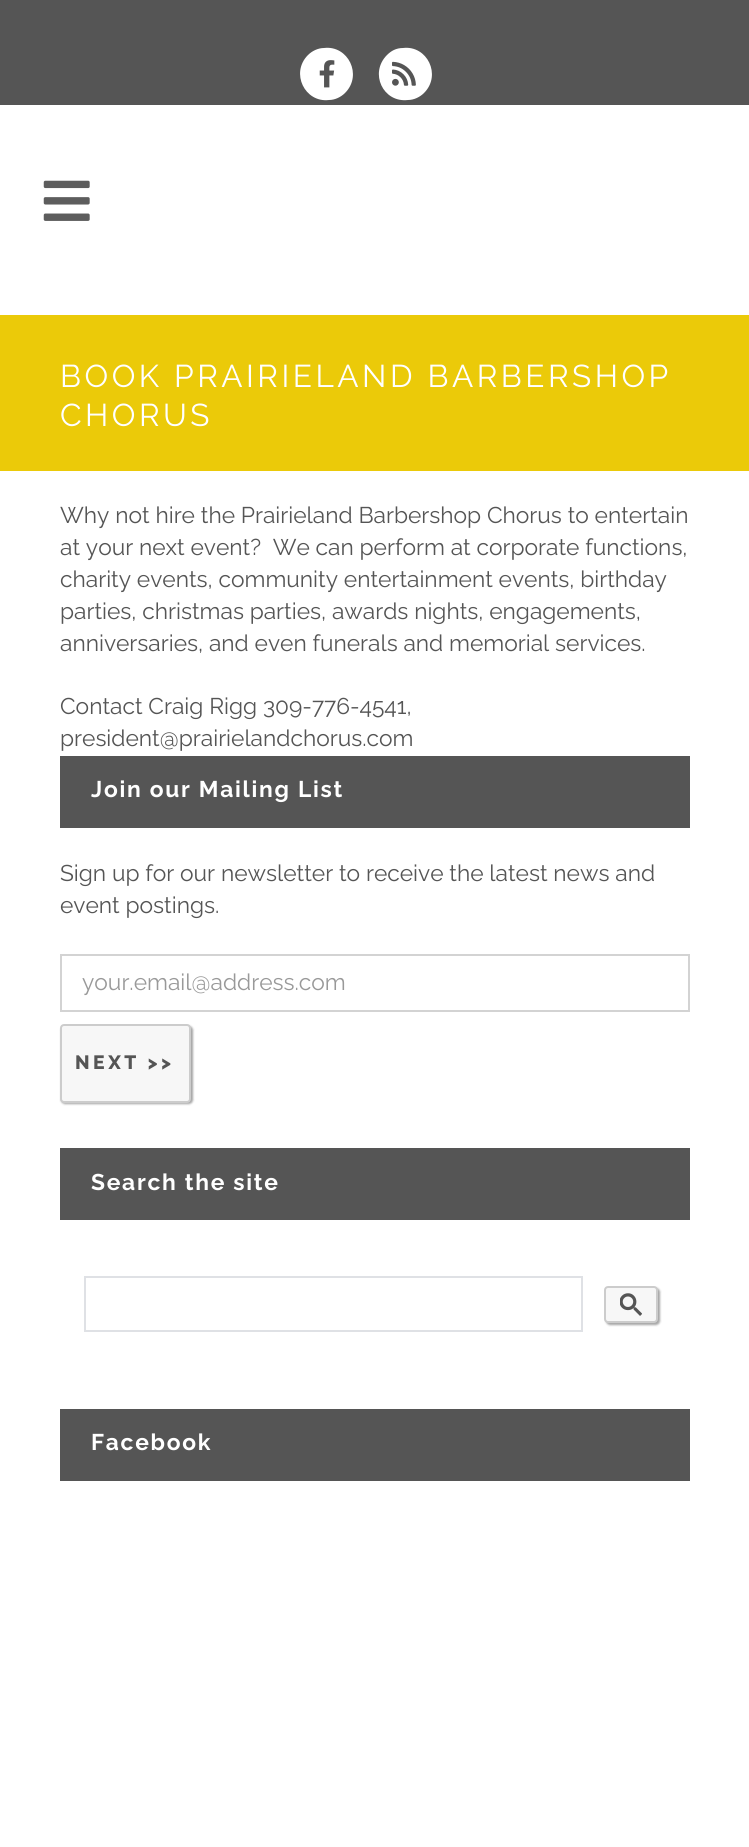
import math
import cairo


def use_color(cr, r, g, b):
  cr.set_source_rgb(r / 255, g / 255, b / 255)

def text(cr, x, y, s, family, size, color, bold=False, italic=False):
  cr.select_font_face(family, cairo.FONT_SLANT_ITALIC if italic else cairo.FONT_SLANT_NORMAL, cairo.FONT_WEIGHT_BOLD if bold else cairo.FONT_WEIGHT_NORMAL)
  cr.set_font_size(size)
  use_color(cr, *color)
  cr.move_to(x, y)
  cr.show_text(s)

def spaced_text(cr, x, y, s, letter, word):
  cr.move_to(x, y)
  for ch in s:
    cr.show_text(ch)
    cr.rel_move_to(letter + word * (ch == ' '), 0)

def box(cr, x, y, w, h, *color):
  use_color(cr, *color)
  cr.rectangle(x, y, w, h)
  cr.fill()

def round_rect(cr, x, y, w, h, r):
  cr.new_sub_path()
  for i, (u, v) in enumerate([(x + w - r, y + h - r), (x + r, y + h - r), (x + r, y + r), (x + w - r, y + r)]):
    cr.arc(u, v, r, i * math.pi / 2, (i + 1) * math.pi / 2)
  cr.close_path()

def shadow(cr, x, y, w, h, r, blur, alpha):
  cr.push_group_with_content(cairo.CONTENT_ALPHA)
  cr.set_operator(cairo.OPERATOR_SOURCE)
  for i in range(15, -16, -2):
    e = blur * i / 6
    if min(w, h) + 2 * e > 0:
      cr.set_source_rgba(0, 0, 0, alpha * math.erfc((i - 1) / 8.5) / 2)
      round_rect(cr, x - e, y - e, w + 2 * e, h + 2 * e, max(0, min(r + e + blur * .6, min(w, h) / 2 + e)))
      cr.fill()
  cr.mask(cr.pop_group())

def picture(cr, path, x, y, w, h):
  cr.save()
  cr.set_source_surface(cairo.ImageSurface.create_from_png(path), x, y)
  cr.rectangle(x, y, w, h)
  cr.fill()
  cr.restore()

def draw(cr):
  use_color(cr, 255, 255, 255)
  cr.paint()
  box(cr, 0, 0, 749, 105, 85, 85, 85)
  use_color(cr, 255, 255, 255)
  cr.new_path()
  cr.move_to(308, 55)
  cr.curve_to(312, 51, 318, 48, 324, 48)
  cr.curve_to(348, 45, 363, 75, 345, 93)
  cr.curve_to(341, 97, 335, 100, 329, 100)
  cr.curve_to(305, 103, 290, 73, 308, 55)
  cr.close_path()
  cr.fill()
  picture(cr, "img_01.png", 319, 60, 16, 28)
  cr.new_path()
  cr.move_to(387, 55)
  cr.curve_to(391, 51, 396, 48, 403, 48)
  cr.curve_to(427, 45, 442, 75, 424, 93)
  cr.curve_to(420, 97, 414, 100, 408, 100)
  cr.curve_to(383, 103, 369, 73, 387, 55)
  cr.close_path()
  cr.fill()
  picture(cr, "img_02.png", 392, 61, 24, 25)
  picture(cr, "img_03.png", 43, 180, 47, 41)
  box(cr, 0, 315, 749, 156, 235, 202, 9)
  box(cr, 60, 756, 630, 72, 85, 85, 85)
  cr.rectangle(61, 955, 628, 56)
  use_color(cr, 211, 211, 211)
  cr.stroke()
  use_color(cr, 0, 0, 0)
  shadow(cr, 61, 1026, 132, 78, 4, 1, 0.35)
  use_color(cr, 247, 247, 247)
  round_rect(cr, 61, 1025, 129, 77, 3)
  cr.fill_preserve()
  use_color(cr, 204, 204, 204)
  cr.stroke()
  box(cr, 60, 1148, 630, 72, 85, 85, 85)
  cr.rectangle(85, 1277, 497, 54)
  use_color(cr, 223, 225, 229)
  cr.stroke()
  use_color(cr, 0, 0, 0)
  shadow(cr, 606, 1288, 54, 37, 4, 1, 0.35)
  use_color(cr, 247, 247, 247)
  round_rect(cr, 605, 1287, 52, 35, 3)
  cr.fill_preserve()
  use_color(cr, 204, 204, 204)
  cr.stroke()
  picture(cr, "img_04.png", 620, 1293, 22, 23)
  box(cr, 60, 1409, 630, 72, 85, 85, 85)
  cr.select_font_face("Raleway")
  cr.set_font_size(31.5)
  use_color(cr, 255, 255, 255)
  spaced_text(cr, 60, 387, "BOOK PRAIRIELAND BARBERSHOP", 3.5, 0)
  spaced_text(cr, 60, 426, "CHORUS", 3.5, 0)
  text(cr, 60, 523, "Why not hire the Prairieland Barbershop Chorus to entertain", "Raleway", 22.75, (85, 85, 85))
  text(cr, 60, 555, "at your next event?  We can perform at corporate functions,", "Raleway", 22.75, (85, 85, 85))
  text(cr, 60, 587, "charity events, community entertainment events, birthday", "Raleway", 22.75, (85, 85, 85))
  text(cr, 60, 619, "parties, christmas parties, awards nights, engagements,", "Raleway", 22.75, (85, 85, 85))
  text(cr, 60, 651, "anniversaries, and even funerals and memorial services.", "Raleway", 22.75, (85, 85, 85))
  text(cr, 60, 714, "Contact Craig Rigg 309-776-4541,", "Raleway", 22.75, (85, 85, 85))
  text(cr, 60, 746, "president@prairielandchorus.com", "Raleway", 22.75, (85, 85, 85))
  cr.select_font_face("Raleway", cairo.FONT_SLANT_NORMAL, cairo.FONT_WEIGHT_BOLD)
  use_color(cr, 255, 255, 255)
  spaced_text(cr, 91, 797, "Join our Mailing List", 1.75, 0)
  text(cr, 60, 881, "Sign up for our newsletter to receive the latest news and", "Raleway", 22.75, (85, 85, 85))
  text(cr, 60, 913, "event postings.", "Raleway", 22.75, (85, 85, 85))
  text(cr, 82, 990, "your.email@address.com", "Raleway", 22.75, (153, 153, 153))
  cr.select_font_face("Raleway ExtraBold")
  cr.set_font_size(19.25)
  use_color(cr, 85, 85, 85)
  spaced_text(cr, 75, 1069, "NEXT >>", 3.5, 0)
  cr.select_font_face("Raleway", cairo.FONT_SLANT_NORMAL, cairo.FONT_WEIGHT_BOLD)
  cr.set_font_size(22.75)
  use_color(cr, 255, 255, 255)
  spaced_text(cr, 91, 1190, "Search the site", 1.75, 0)
  spaced_text(cr, 91, 1450, "Facebook", 1.75, 0)


surface = cairo.ImageSurface(cairo.FORMAT_RGB24, 749, 1847)
cr = cairo.Context(surface)
options = cairo.FontOptions()
options.set_hint_metrics(cairo.HINT_METRICS_OFF)
options.set_hint_style(cairo.HINT_STYLE_NONE)
cr.set_font_options(options)
cr.set_miter_limit(4)
draw(cr)
surface.write_to_png("out.png")
